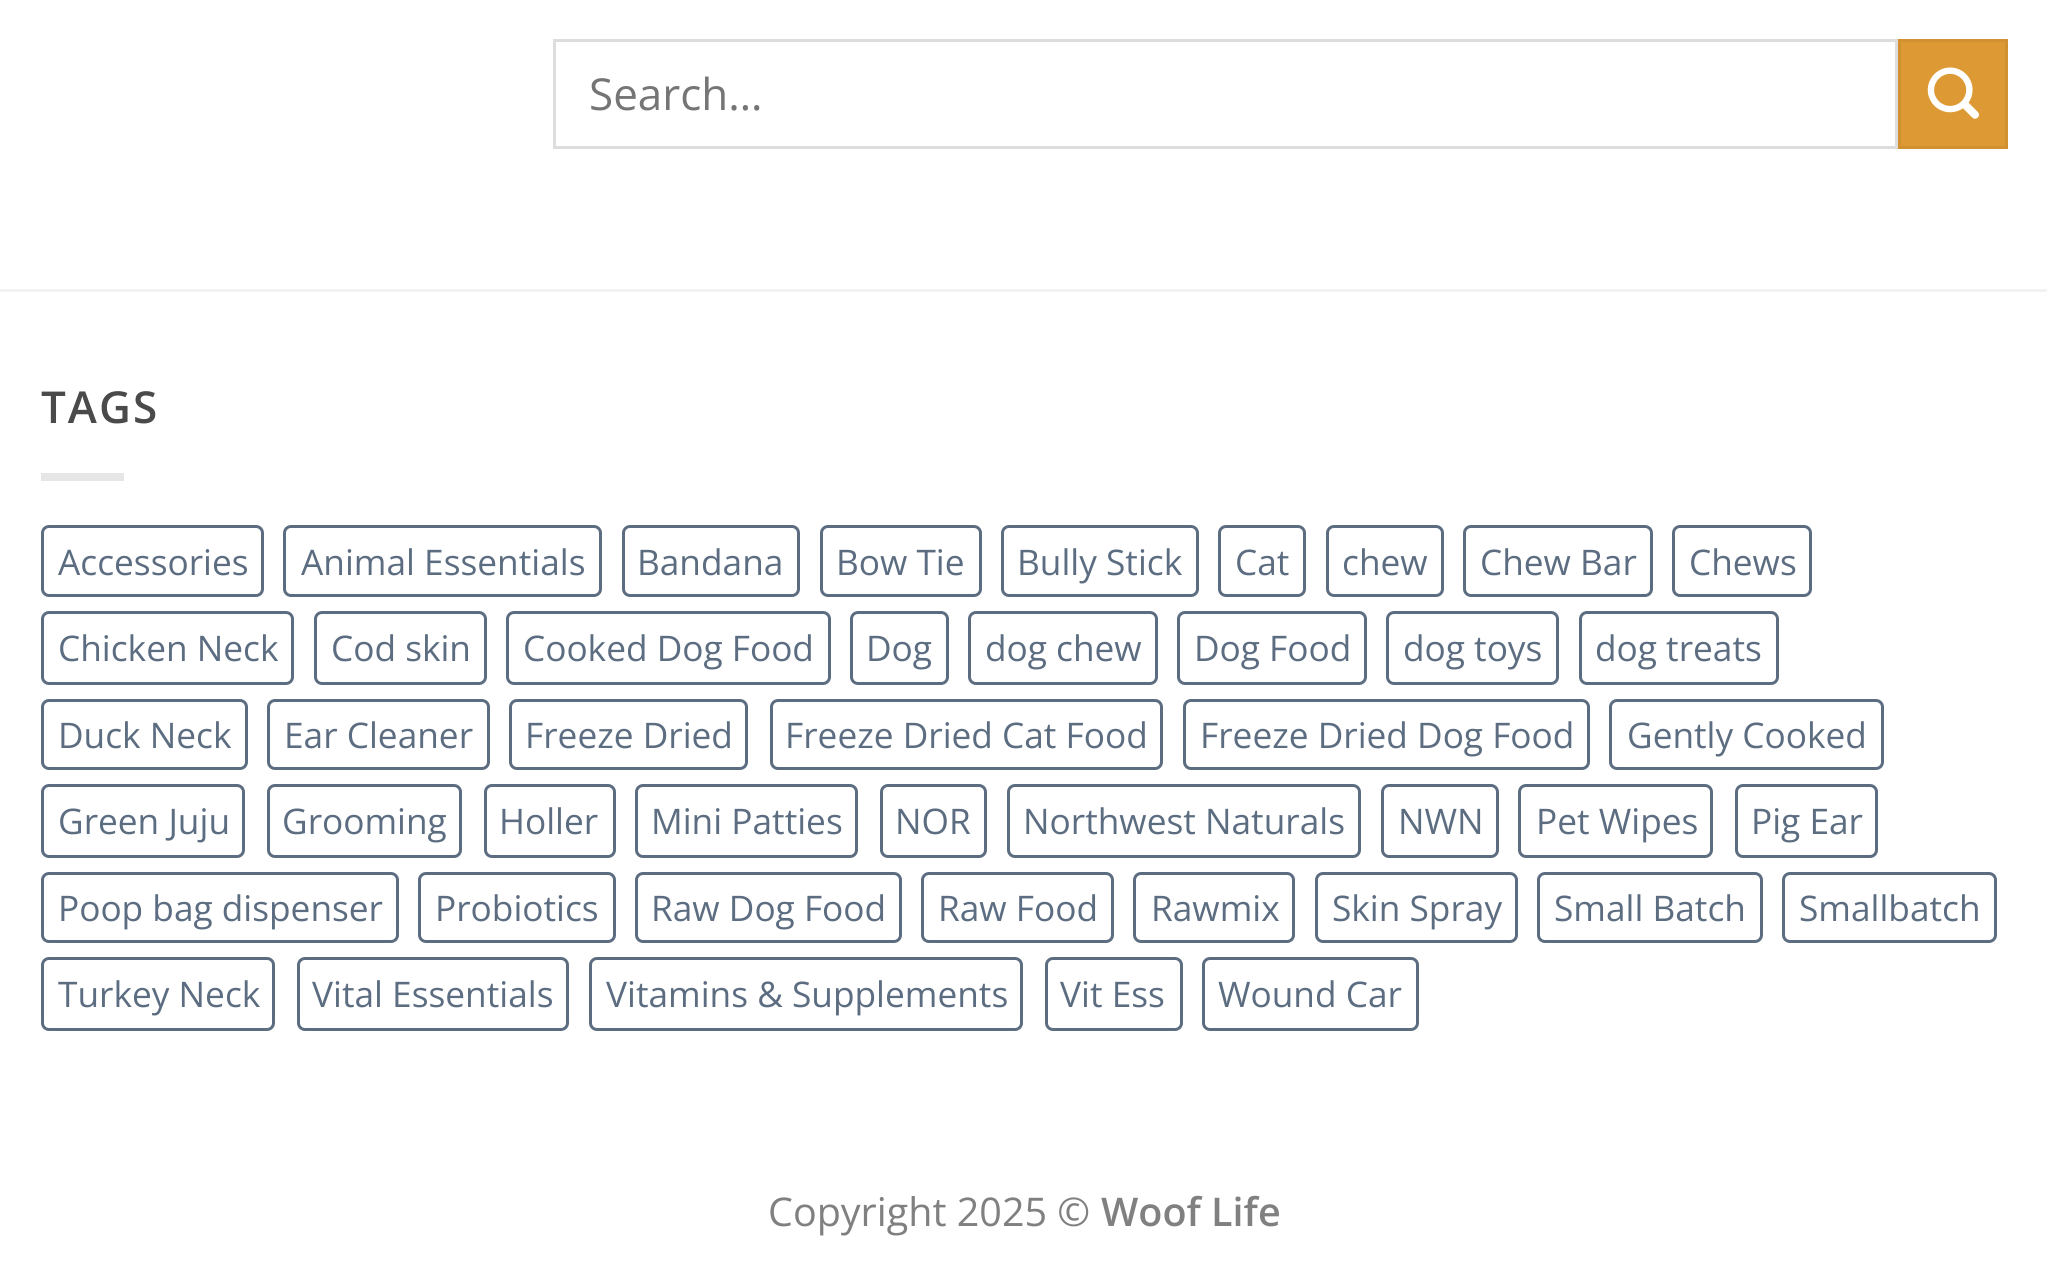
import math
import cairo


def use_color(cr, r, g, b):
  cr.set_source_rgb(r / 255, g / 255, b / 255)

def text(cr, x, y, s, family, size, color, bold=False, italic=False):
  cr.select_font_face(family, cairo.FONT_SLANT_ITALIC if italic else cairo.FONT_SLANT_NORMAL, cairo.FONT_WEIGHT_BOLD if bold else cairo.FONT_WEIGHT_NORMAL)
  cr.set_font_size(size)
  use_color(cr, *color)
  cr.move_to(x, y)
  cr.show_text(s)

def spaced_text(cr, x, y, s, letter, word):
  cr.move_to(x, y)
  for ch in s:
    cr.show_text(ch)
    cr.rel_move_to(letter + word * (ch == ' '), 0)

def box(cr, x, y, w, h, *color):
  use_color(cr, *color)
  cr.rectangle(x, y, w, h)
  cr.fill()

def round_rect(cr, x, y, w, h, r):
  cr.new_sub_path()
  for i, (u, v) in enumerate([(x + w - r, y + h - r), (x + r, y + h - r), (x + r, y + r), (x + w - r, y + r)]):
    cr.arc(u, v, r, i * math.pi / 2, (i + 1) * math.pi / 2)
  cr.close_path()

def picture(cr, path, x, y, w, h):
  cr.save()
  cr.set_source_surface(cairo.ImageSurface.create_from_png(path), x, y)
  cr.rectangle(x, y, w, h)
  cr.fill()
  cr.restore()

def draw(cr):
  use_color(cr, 255, 255, 255)
  cr.paint()
  cr.rectangle(554.5, 40.5, 1342, 107)
  use_color(cr, 221, 221, 221)
  cr.set_line_width(3)
  cr.stroke()
  use_color(cr, 221, 153, 51)
  cr.rectangle(1899.5, 40.5, 107, 107)
  cr.fill_preserve()
  use_color(cr, 210, 145, 48)
  cr.stroke()
  picture(cr, "img_01.png", 1927, 67, 52, 52)
  box(cr, 0, 289, 2047, 3, 242, 242, 242)
  box(cr, 41, 473, 83, 8, 230, 230, 230)
  round_rect(cr, 42.5, 526.5, 220, 69, 6.5)
  use_color(cr, 92, 109, 129)
  cr.stroke()
  round_rect(cr, 284.5, 526.5, 316, 69, 6.5)
  cr.stroke()
  round_rect(cr, 623.5, 526.5, 175, 69, 6.5)
  cr.stroke()
  round_rect(cr, 821.5, 526.5, 159, 69, 6.5)
  cr.stroke()
  round_rect(cr, 1002.5, 526.5, 195, 69, 6.5)
  cr.stroke()
  round_rect(cr, 1219.5, 526.5, 85, 69, 6.5)
  cr.stroke()
  round_rect(cr, 1327.5, 526.5, 115, 69, 6.5)
  cr.stroke()
  round_rect(cr, 1464.5, 526.5, 187, 69, 6.5)
  cr.stroke()
  round_rect(cr, 1673.5, 526.5, 137, 69, 6.5)
  cr.stroke()
  round_rect(cr, 42.5, 612.5, 250, 71, 6.5)
  cr.stroke()
  round_rect(cr, 315.5, 612.5, 170, 71, 6.5)
  cr.stroke()
  round_rect(cr, 507.5, 612.5, 322, 71, 6.5)
  cr.stroke()
  round_rect(cr, 851.5, 612.5, 96, 71, 6.5)
  cr.stroke()
  round_rect(cr, 969.5, 612.5, 187, 71, 6.5)
  cr.stroke()
  round_rect(cr, 1178.5, 612.5, 187, 71, 6.5)
  cr.stroke()
  round_rect(cr, 1387.5, 612.5, 170, 71, 6.5)
  cr.stroke()
  round_rect(cr, 1580.5, 612.5, 197, 71, 6.5)
  cr.stroke()
  round_rect(cr, 42.5, 700.5, 204, 68, 6.5)
  cr.stroke()
  round_rect(cr, 268.5, 700.5, 220, 68, 6.5)
  cr.stroke()
  round_rect(cr, 510.5, 700.5, 236, 68, 6.5)
  cr.stroke()
  round_rect(cr, 771.5, 700.5, 390, 68, 6.5)
  cr.stroke()
  round_rect(cr, 1184.5, 700.5, 404, 68, 6.5)
  cr.stroke()
  round_rect(cr, 1610.5, 700.5, 272, 68, 6.5)
  cr.stroke()
  round_rect(cr, 42.5, 785.5, 201, 71, 6.5)
  cr.stroke()
  round_rect(cr, 268.5, 785.5, 192, 71, 6.5)
  cr.stroke()
  round_rect(cr, 485.5, 785.5, 129, 71, 6.5)
  cr.stroke()
  round_rect(cr, 636.5, 785.5, 220, 71, 6.5)
  cr.stroke()
  round_rect(cr, 881.5, 785.5, 104, 71, 6.5)
  cr.stroke()
  round_rect(cr, 1008.5, 785.5, 351, 71, 6.5)
  cr.stroke()
  round_rect(cr, 1382.5, 785.5, 115, 71, 6.5)
  cr.stroke()
  round_rect(cr, 1519.5, 785.5, 192, 71, 6.5)
  cr.stroke()
  round_rect(cr, 1736.5, 785.5, 140, 71, 6.5)
  cr.stroke()
  round_rect(cr, 42.5, 873.5, 355, 68, 6.5)
  cr.stroke()
  round_rect(cr, 419.5, 873.5, 195, 68, 6.5)
  cr.stroke()
  round_rect(cr, 636.5, 873.5, 264, 68, 6.5)
  cr.stroke()
  round_rect(cr, 922.5, 873.5, 190, 68, 6.5)
  cr.stroke()
  round_rect(cr, 1134.5, 873.5, 159, 68, 6.5)
  cr.stroke()
  round_rect(cr, 1316.5, 873.5, 200, 68, 6.5)
  cr.stroke()
  round_rect(cr, 1538.5, 873.5, 223, 68, 6.5)
  cr.stroke()
  round_rect(cr, 1783.5, 873.5, 212, 68, 6.5)
  cr.stroke()
  round_rect(cr, 42.5, 958.5, 231, 71, 6.5)
  cr.stroke()
  round_rect(cr, 298.5, 958.5, 269, 71, 6.5)
  cr.stroke()
  round_rect(cr, 590.5, 958.5, 431, 71, 6.5)
  cr.stroke()
  round_rect(cr, 1046.5, 958.5, 135, 71, 6.5)
  cr.stroke()
  round_rect(cr, 1203.5, 958.5, 214, 71, 6.5)
  cr.stroke()
  text(cr, 589, 110, "Search…", "Open Sans", 44, (117, 117, 117))
  cr.select_font_face("Open Sans SemiBold")
  use_color(cr, 74, 74, 74)
  spaced_text(cr, 41, 423, "TAGS", 2, 0)
  text(cr, 58, 575, "Accessories", "Open Sans", 35.25, (92, 109, 129))
  text(cr, 301, 575, "Animal Essentials", "Open Sans", 35.25, (92, 109, 129))
  text(cr, 637, 575, "Bandana", "Open Sans", 35.25, (92, 109, 129))
  text(cr, 836, 575, "Bow Tie", "Open Sans", 35.25, (92, 109, 129))
  text(cr, 1017, 575, "Bully Stick", "Open Sans", 35.25, (92, 109, 129))
  text(cr, 1235, 575, "Cat", "Open Sans", 35.25, (92, 109, 129))
  text(cr, 1342, 575, "chew", "Open Sans", 35.25, (92, 109, 129))
  text(cr, 1480, 575, "Chew Bar", "Open Sans", 35.25, (92, 109, 129))
  text(cr, 1689, 575, "Chews", "Open Sans", 35.25, (92, 109, 129))
  text(cr, 58, 661, "Chicken Neck", "Open Sans", 35.25, (92, 109, 129))
  text(cr, 331, 661, "Cod skin", "Open Sans", 35.25, (92, 109, 129))
  text(cr, 523, 661, "Cooked Dog Food", "Open Sans", 35.25, (92, 109, 129))
  text(cr, 866, 661, "Dog", "Open Sans", 35.25, (92, 109, 129))
  text(cr, 985, 661, "dog chew", "Open Sans", 35.25, (92, 109, 129))
  text(cr, 1194, 661, "Dog Food", "Open Sans", 35.25, (92, 109, 129))
  text(cr, 1403, 661, "dog toys", "Open Sans", 35.25, (92, 109, 129))
  text(cr, 1595, 661, "dog treats", "Open Sans", 35.25, (92, 109, 129))
  text(cr, 58, 748, "Duck Neck", "Open Sans", 35.25, (92, 109, 129))
  text(cr, 284, 748, "Ear Cleaner", "Open Sans", 35.25, (92, 109, 129))
  text(cr, 525, 748, "Freeze Dried", "Open Sans", 35.25, (92, 109, 129))
  text(cr, 785, 748, "Freeze Dried Cat Food", "Open Sans", 35.25, (92, 109, 129))
  text(cr, 1200, 748, "Freeze Dried Dog Food", "Open Sans", 35.25, (92, 109, 129))
  text(cr, 1627, 748, "Gently Cooked", "Open Sans", 35.25, (92, 109, 129))
  text(cr, 58, 834, "Green Juju", "Open Sans", 35.25, (92, 109, 129))
  text(cr, 282, 834, "Grooming", "Open Sans", 35.25, (92, 109, 129))
  text(cr, 499, 834, "Holler", "Open Sans", 35.25, (92, 109, 129))
  text(cr, 651, 834, "Mini Patties", "Open Sans", 35.25, (92, 109, 129))
  text(cr, 895, 834, "NOR", "Open Sans", 35.25, (92, 109, 129))
  text(cr, 1023, 834, "Northwest Naturals", "Open Sans", 35.25, (92, 109, 129))
  text(cr, 1398, 834, "NWN", "Open Sans", 35.25, (92, 109, 129))
  text(cr, 1536, 834, "Pet Wipes", "Open Sans", 35.25, (92, 109, 129))
  text(cr, 1751, 834, "Pig Ear", "Open Sans", 35.25, (92, 109, 129))
  text(cr, 58, 921, "Poop bag dispenser", "Open Sans", 35.25, (92, 109, 129))
  text(cr, 435, 921, "Probiotics", "Open Sans", 35.25, (92, 109, 129))
  text(cr, 651, 921, "Raw Dog Food", "Open Sans", 35.25, (92, 109, 129))
  text(cr, 938, 921, "Raw Food", "Open Sans", 35.25, (92, 109, 129))
  text(cr, 1151, 921, "Rawmix", "Open Sans", 35.25, (92, 109, 129))
  text(cr, 1332, 921, "Skin Spray", "Open Sans", 35.25, (92, 109, 129))
  text(cr, 1554, 921, "Small Batch", "Open Sans", 35.25, (92, 109, 129))
  text(cr, 1799, 921, "Smallbatch", "Open Sans", 35.25, (92, 109, 129))
  text(cr, 58, 1007, "Turkey Neck", "Open Sans", 35.25, (92, 109, 129))
  text(cr, 312, 1007, "Vital Essentials", "Open Sans", 35.25, (92, 109, 129))
  text(cr, 606, 1007, "Vitamins & Supplements", "Open Sans", 35.25, (92, 109, 129))
  text(cr, 1060, 1007, "Vit Ess", "Open Sans", 35.25, (92, 109, 129))
  text(cr, 1218, 1007, "Wound Car", "Open Sans", 35.25, (92, 109, 129))
  text(cr, 768, 1226, "Copyright 2025 ©", "Open Sans", 39.5, (128, 128, 128))
  text(cr, 1101, 1226, "Woof Life", "Open Sans SemiBold", 39.5, (128, 128, 128))


surface = cairo.ImageSurface(cairo.FORMAT_RGB24, 2047, 1283)
cr = cairo.Context(surface)
options = cairo.FontOptions()
options.set_hint_metrics(cairo.HINT_METRICS_OFF)
options.set_hint_style(cairo.HINT_STYLE_NONE)
cr.set_font_options(options)
cr.set_miter_limit(4)
draw(cr)
surface.write_to_png("out.png")
